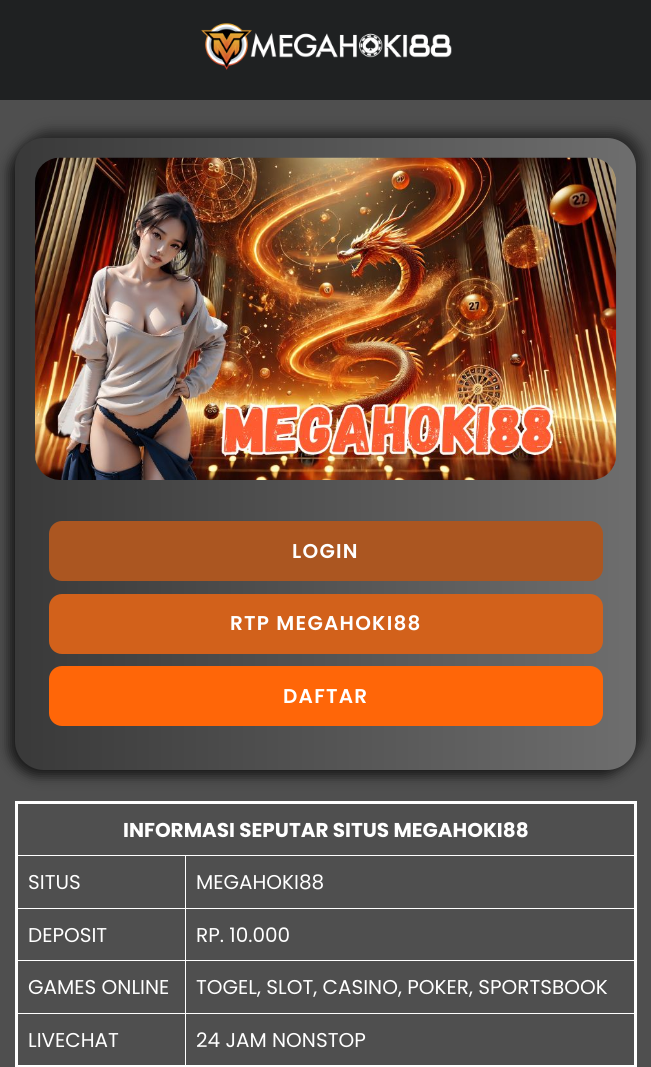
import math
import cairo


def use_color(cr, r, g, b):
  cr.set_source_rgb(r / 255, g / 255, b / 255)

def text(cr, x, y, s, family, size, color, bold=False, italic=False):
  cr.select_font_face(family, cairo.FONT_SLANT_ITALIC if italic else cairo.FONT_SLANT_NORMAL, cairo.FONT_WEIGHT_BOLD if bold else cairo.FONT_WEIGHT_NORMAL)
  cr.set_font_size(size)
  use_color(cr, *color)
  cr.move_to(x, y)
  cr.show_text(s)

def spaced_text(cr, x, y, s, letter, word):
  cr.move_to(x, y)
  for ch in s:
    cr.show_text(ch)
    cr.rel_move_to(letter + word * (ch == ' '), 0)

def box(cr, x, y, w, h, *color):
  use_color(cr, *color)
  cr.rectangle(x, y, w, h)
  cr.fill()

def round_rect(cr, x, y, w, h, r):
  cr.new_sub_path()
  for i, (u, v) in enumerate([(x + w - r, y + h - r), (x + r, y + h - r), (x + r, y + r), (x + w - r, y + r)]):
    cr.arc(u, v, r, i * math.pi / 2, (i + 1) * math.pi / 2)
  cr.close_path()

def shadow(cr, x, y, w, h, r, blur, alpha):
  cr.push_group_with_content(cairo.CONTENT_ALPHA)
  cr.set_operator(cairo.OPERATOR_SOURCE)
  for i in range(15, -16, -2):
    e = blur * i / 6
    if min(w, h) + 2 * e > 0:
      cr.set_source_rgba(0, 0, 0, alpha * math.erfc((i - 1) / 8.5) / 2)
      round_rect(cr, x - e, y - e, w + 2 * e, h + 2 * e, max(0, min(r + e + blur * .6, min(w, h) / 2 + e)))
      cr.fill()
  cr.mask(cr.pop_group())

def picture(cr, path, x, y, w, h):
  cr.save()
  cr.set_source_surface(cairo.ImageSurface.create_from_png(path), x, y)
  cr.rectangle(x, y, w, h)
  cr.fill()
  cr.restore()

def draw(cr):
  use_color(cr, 79, 79, 79)
  cr.paint()
  box(cr, 0, 0, 651, 100, 31, 33, 34)
  picture(cr, "img_01.png", 201, 23, 251, 47)
  use_color(cr, 41, 41, 41)
  shadow(cr, 21, 131, 622, 633, 29, 6, 1)
  use_color(cr, 25, 25, 25)
  shadow(cr, 9, 144, 621, 632, 29, 6, 1)
  gradient = cairo.LinearGradient(15, 454, 636, 454)
  gradient.add_color_stop_rgba(0, 0.224, 0.224, 0.224, 1)
  gradient.add_color_stop_rgba(1, 0.431, 0.431, 0.431, 1)
  cr.set_source(gradient)
  round_rect(cr, 15, 138, 621, 632, 29)
  cr.fill()
  picture(cr, "img_02.png", 35, 157, 582, 323)
  use_color(cr, 171, 86, 33)
  round_rect(cr, 49, 521, 554, 60, 13)
  cr.fill()
  use_color(cr, 210, 97, 27)
  round_rect(cr, 49, 594, 554, 60, 13)
  cr.fill()
  use_color(cr, 255, 102, 8)
  round_rect(cr, 49, 666, 554, 60, 13)
  cr.fill()
  box(cr, 15, 801, 621, 3, 255, 255, 255)
  box(cr, 185, 855, 451, 1, 255, 255, 255)
  box(cr, 185, 908, 451, 1, 255, 255, 255)
  box(cr, 185, 960, 451, 1, 255, 255, 255)
  box(cr, 185, 1013, 451, 1, 255, 255, 255)
  box(cr, 634, 801, 3, 266, 255, 255, 255)
  box(cr, 185, 1013, 1, 54, 255, 255, 255)
  box(cr, 15, 1065, 621, 2, 255, 255, 255)
  box(cr, 16, 1013, 170, 1, 255, 255, 255)
  box(cr, 185, 960, 1, 54, 255, 255, 255)
  box(cr, 16, 960, 170, 1, 255, 255, 255)
  box(cr, 185, 908, 1, 53, 255, 255, 255)
  box(cr, 16, 908, 170, 1, 255, 255, 255)
  box(cr, 185, 855, 1, 54, 255, 255, 255)
  box(cr, 16, 855, 170, 1, 255, 255, 255)
  box(cr, 15, 801, 3, 266, 255, 255, 255)
  cr.select_font_face("Poppins SemiBold")
  cr.set_font_size(20)
  spaced_text(cr, 292, 558, "LOGIN", 1.25, 0)
  spaced_text(cr, 230, 630, "RTP MEGAHOKI88", 1.25, 0)
  spaced_text(cr, 283, 703, "DAFTAR", 1.25, 0)
  text(cr, 123, 837, "INFORMASI SEPUTAR SITUS MEGAHOKI88", "Poppins", 20, (255, 255, 255), bold=True)
  text(cr, 28, 889, "SITUS", "Poppins", 20, (255, 255, 255))
  text(cr, 196, 889, "MEGAHOKI88", "Poppins", 20, (255, 255, 255))
  text(cr, 28, 942, "DEPOSIT", "Poppins", 20, (255, 255, 255))
  text(cr, 196, 942, "RP. 10.000", "Poppins", 20, (255, 255, 255))
  text(cr, 28, 994, "GAMES ONLINE", "Poppins", 20, (255, 255, 255))
  text(cr, 196, 994, "TOGEL, SLOT, CASINO, POKER, SPORTSBOOK", "Poppins", 20, (255, 255, 255))
  text(cr, 28, 1047, "LIVECHAT", "Poppins", 20, (255, 255, 255))
  text(cr, 196, 1047, "24 JAM NONSTOP", "Poppins", 20, (255, 255, 255))


surface = cairo.ImageSurface(cairo.FORMAT_RGB24, 651, 1067)
cr = cairo.Context(surface)
options = cairo.FontOptions()
options.set_hint_metrics(cairo.HINT_METRICS_OFF)
options.set_hint_style(cairo.HINT_STYLE_NONE)
cr.set_font_options(options)
cr.set_miter_limit(4)
draw(cr)
surface.write_to_png("out.png")
